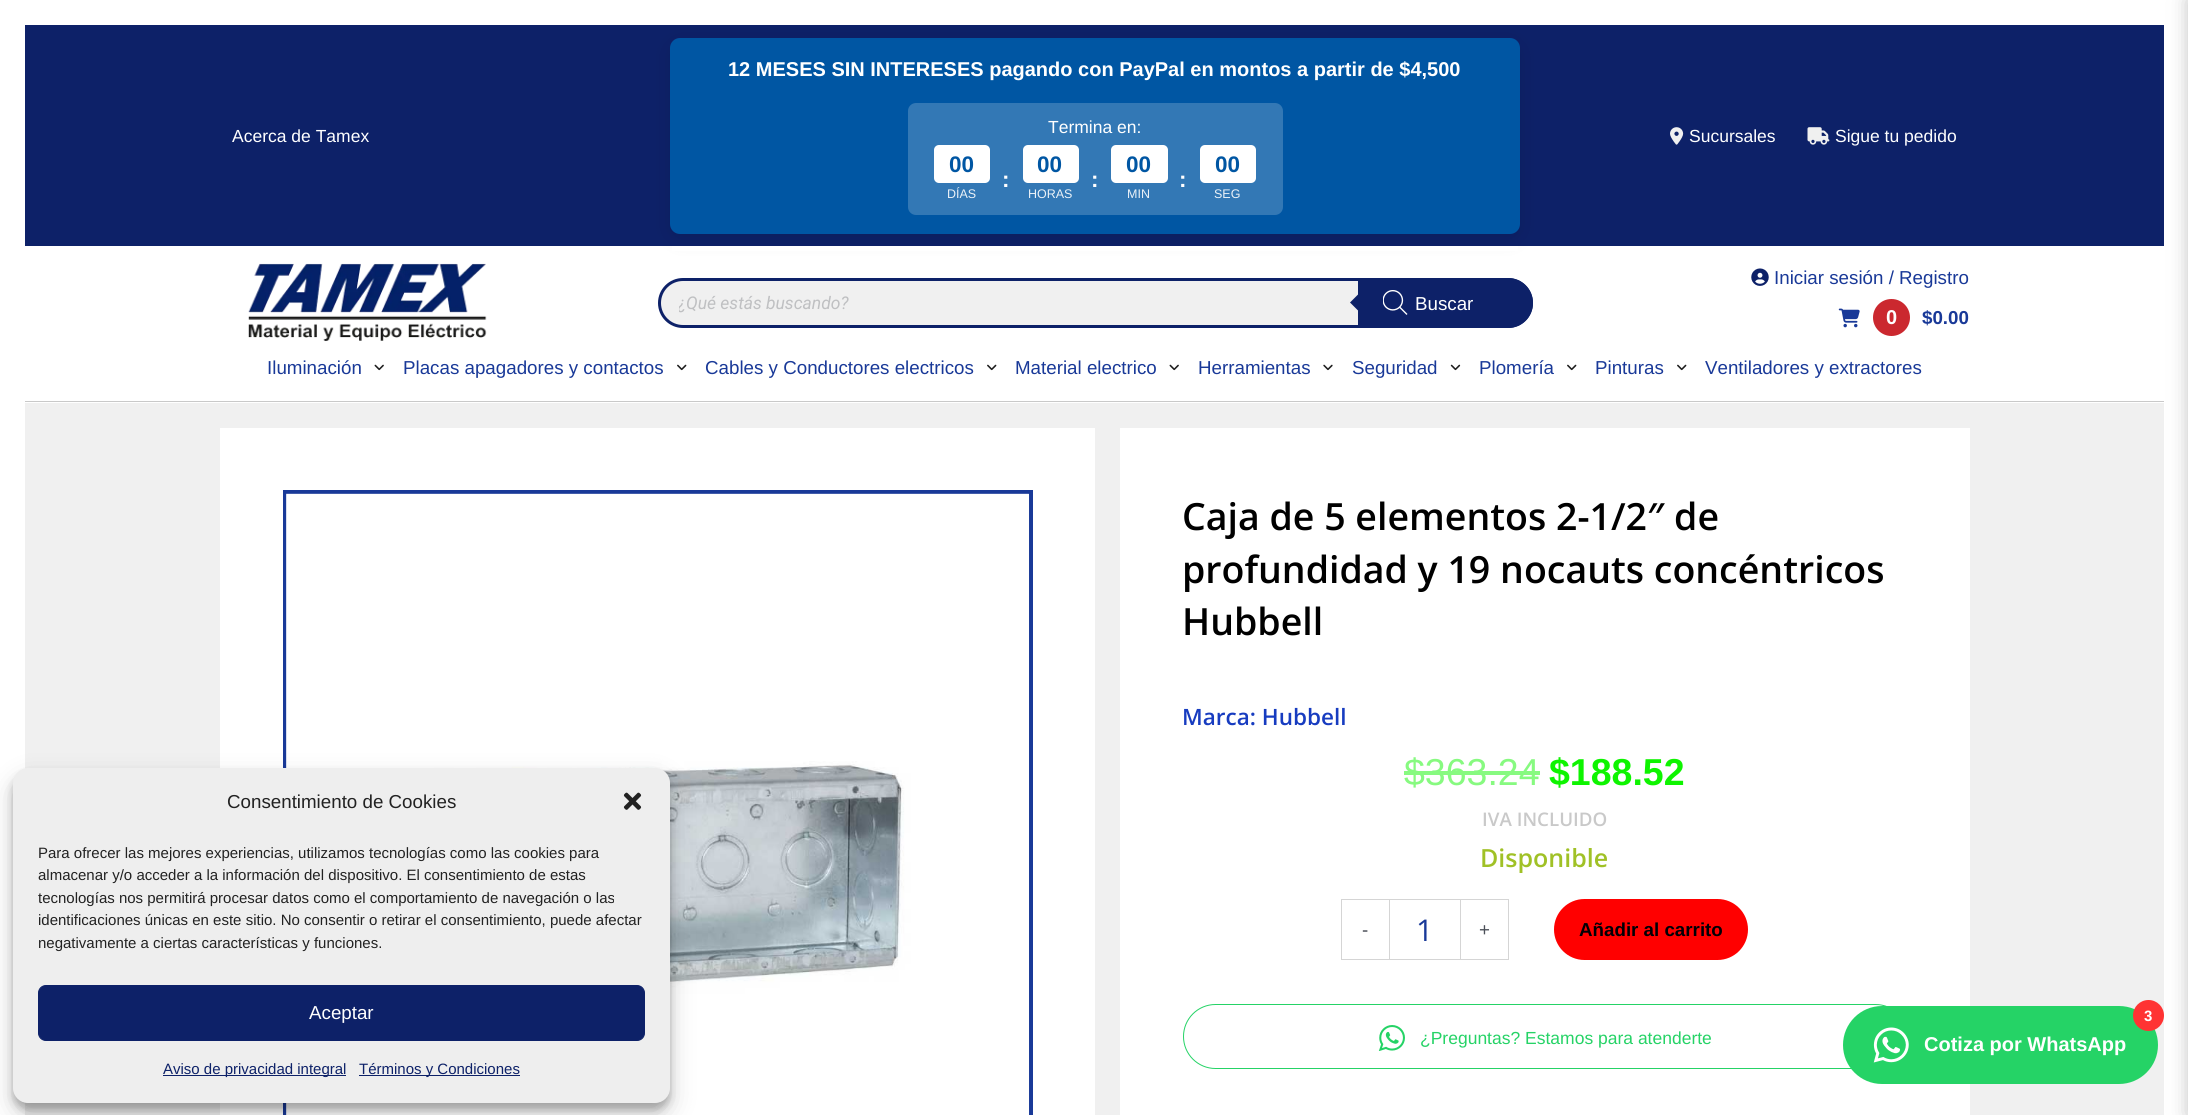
import math
import cairo


def use_color(cr, r, g, b):
  cr.set_source_rgb(r / 255, g / 255, b / 255)

def text(cr, x, y, s, family, size, color, bold=False, italic=False):
  cr.select_font_face(family, cairo.FONT_SLANT_ITALIC if italic else cairo.FONT_SLANT_NORMAL, cairo.FONT_WEIGHT_BOLD if bold else cairo.FONT_WEIGHT_NORMAL)
  cr.set_font_size(size)
  use_color(cr, *color)
  cr.move_to(x, y)
  cr.show_text(s)

def box(cr, x, y, w, h, *color):
  use_color(cr, *color)
  cr.rectangle(x, y, w, h)
  cr.fill()

def round_rect(cr, x, y, w, h, r):
  cr.new_sub_path()
  for i, (u, v) in enumerate([(x + w - r, y + h - r), (x + r, y + h - r), (x + r, y + r), (x + w - r, y + r)]):
    cr.arc(u, v, r, i * math.pi / 2, (i + 1) * math.pi / 2)
  cr.close_path()

def shadow(cr, x, y, w, h, r, blur, alpha):
  cr.push_group_with_content(cairo.CONTENT_ALPHA)
  cr.set_operator(cairo.OPERATOR_SOURCE)
  for i in range(15, -16, -2):
    e = blur * i / 6
    if min(w, h) + 2 * e > 0:
      cr.set_source_rgba(0, 0, 0, alpha * math.erfc((i - 1) / 8.5) / 2)
      round_rect(cr, x - e, y - e, w + 2 * e, h + 2 * e, max(0, min(r + e + blur * .6, min(w, h) / 2 + e)))
      cr.fill()
  cr.mask(cr.pop_group())

def picture(cr, path, x, y, w, h):
  cr.save()
  cr.set_source_surface(cairo.ImageSurface.create_from_png(path), x, y)
  cr.rectangle(x, y, w, h)
  cr.fill()
  cr.restore()

def draw(cr):
  use_color(cr, 255, 255, 255)
  cr.paint()
  box(cr, 25, 25, 2139, 221, 13, 33, 104)
  use_color(cr, 0, 0, 0)
  shadow(cr, 670, 43, 850, 196, 10, 9.5, 0.1)
  use_color(cr, 0, 86, 163)
  round_rect(cr, 670, 38, 850, 196, 10)
  cr.fill()
  use_color(cr, 51, 120, 181)
  round_rect(cr, 908, 103, 375, 112, 8)
  cr.fill()
  use_color(cr, 255, 255, 255)
  round_rect(cr, 934, 145, 56, 38, 5)
  cr.fill()
  round_rect(cr, 1023, 145, 56, 38, 5)
  cr.fill()
  round_rect(cr, 1111, 145, 57, 38, 5)
  cr.fill()
  round_rect(cr, 1200, 145, 56, 38, 5)
  cr.fill()
  picture(cr, "img_01.png", 1670, 127, 14, 18)
  picture(cr, "img_02.png", 1807, 127, 23, 18)
  box(cr, 672, 246, 846, 5, 255, 255, 255)
  box(cr, 25, 401, 2139, 1, 201, 201, 201)
  picture(cr, "img_03.png", 248, 263, 239, 79)
  use_color(cr, 240, 240, 240)
  round_rect(cr, 659.5, 279.5, 872, 47, 23.5)
  cr.fill_preserve()
  use_color(cr, 13, 33, 104)
  cr.set_line_width(3)
  cr.stroke()
  cr.new_path()
  cr.move_to(1358, 278)
  cr.line_to(1508, 278)
  cr.curve_to(1522, 278, 1533, 289, 1533, 303)
  cr.curve_to(1533, 317, 1522, 328, 1508, 328)
  cr.line_to(1358, 328)
  cr.close_path()
  cr.fill()
  cr.new_path()
  cr.move_to(1360, 292.5)
  cr.line_to(1360, 312.5)
  cr.line_to(1350, 302.5)
  cr.close_path()
  cr.fill()
  picture(cr, "img_04.png", 1383, 290, 25, 25)
  picture(cr, "img_05.png", 1751, 268, 18, 18)
  picture(cr, "img_06.png", 1838, 308, 22, 20)
  use_color(cr, 203, 40, 47)
  cr.arc(1891.5, 317.5, 18.5, 0, 2 * math.pi)
  cr.fill()
  box(cr, 25, 403, 2139, 712, 240, 240, 240)
  use_color(cr, 122, 122, 122)
  shadow(cr, 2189, 0, 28, 1115, 0, 9.5, 0.5)
  picture(cr, "img_07.png", 374, 364, 10, 7)
  picture(cr, "img_08.png", 677, 364, 10, 7)
  picture(cr, "img_08.png", 987, 364, 10, 7)
  picture(cr, "img_07.png", 1169, 364, 10, 7)
  picture(cr, "img_09.png", 1323, 364, 10, 7)
  picture(cr, "img_10.png", 1450, 364, 11, 7)
  picture(cr, "img_08.png", 1567, 364, 10, 7)
  picture(cr, "img_08.png", 1677, 364, 10, 7)
  box(cr, 220, 428, 875, 687, 255, 255, 255)
  cr.rectangle(285, 492, 746, 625)
  use_color(cr, 25, 57, 152)
  cr.set_line_width(4)
  cr.stroke()
  picture(cr, "img_11.png", 286, 493, 744, 622)
  box(cr, 1120, 428, 850, 687, 255, 255, 255)
  box(cr, 1404, 771, 136, 4, 135, 250, 128)
  box(cr, 1341, 899, 48, 1, 213, 213, 213)
  box(cr, 1341, 959, 48, 1, 213, 213, 213)
  box(cr, 1341, 899, 1, 61, 213, 213, 213)
  cr.rectangle(1389.5, 899.5, 71, 60)
  cr.set_line_width(1)
  cr.stroke()
  box(cr, 1461, 899, 48, 1, 213, 213, 213)
  box(cr, 1508, 899, 1, 61, 213, 213, 213)
  box(cr, 1461, 959, 48, 1, 213, 213, 213)
  use_color(cr, 255, 0, 0)
  round_rect(cr, 1554, 899, 194, 61, 30.5)
  cr.fill()
  round_rect(cr, 1183.5, 1004.5, 724, 64, 32)
  use_color(cr, 37, 211, 102)
  cr.stroke()
  picture(cr, "img_12.png", 1378, 1025, 27, 26)
  round_rect(cr, 1843, 1006, 315, 78, 39)
  cr.fill()
  use_color(cr, 255, 51, 51)
  cr.arc(2148.5, 1015.5, 15.5, 0, 2 * math.pi)
  cr.fill()
  picture(cr, "img_13.png", 1873, 1027, 36, 36)
  use_color(cr, 0, 0, 0)
  shadow(cr, 13, 775, 657, 335, 15, 4, 0.23)
  shadow(cr, 13, 780, 657, 335, 15, 12.5, 0.19)
  use_color(cr, 238, 238, 238)
  round_rect(cr, 13, 768, 657, 335, 15)
  cr.fill()
  picture(cr, "img_14.png", 623, 792, 19, 18)
  use_color(cr, 13, 33, 104)
  round_rect(cr, 38.5, 985.5, 606, 55, 7.5)
  cr.fill_preserve()
  cr.stroke()
  box(cr, 163, 1075, 183, 1, 13, 33, 104)
  box(cr, 359, 1075, 161, 1, 13, 33, 104)
  text(cr, 232, 142, "Acerca de Tamex", "Liberation Sans", 17.5, (255, 255, 255))
  text(cr, 728, 76, "12 MESES SIN INTERESES pagando con PayPal en montos a partir de $4,500", "Liberation Sans", 20, (255, 255, 255), bold=True)
  text(cr, 1048, 133, "Termina en:", "Liberation Sans", 17.5, (255, 255, 255))
  text(cr, 949, 172, "00", "Liberation Sans", 22.5, (0, 86, 163), bold=True)
  text(cr, 947, 198, "DÍAS", "Liberation Sans", 12.5, (235, 242, 248))
  text(cr, 1002, 187, ":", "Liberation Sans", 22.5, (255, 255, 255), bold=True)
  text(cr, 1037, 172, "00", "Liberation Sans", 22.5, (0, 86, 163), bold=True)
  text(cr, 1028, 198, "HORAS", "Liberation Sans", 12.5, (235, 242, 248))
  text(cr, 1091, 187, ":", "Liberation Sans", 22.5, (255, 255, 255), bold=True)
  text(cr, 1126, 172, "00", "Liberation Sans", 22.5, (0, 86, 163), bold=True)
  text(cr, 1127, 198, "MIN", "Liberation Sans", 12.5, (235, 242, 248))
  text(cr, 1179, 187, ":", "Liberation Sans", 22.5, (255, 255, 255), bold=True)
  text(cr, 1215, 172, "00", "Liberation Sans", 22.5, (0, 86, 163), bold=True)
  text(cr, 1214, 198, "SEG", "Liberation Sans", 12.5, (235, 242, 248))
  text(cr, 1689, 142, "Sucursales", "Liberation Sans", 17.5, (255, 255, 255))
  text(cr, 1835, 142, "Sigue tu pedido", "Liberation Sans", 17.5, (255, 255, 255))
  cr.save()
  cr.rectangle(679, 293, 832, 20)
  cr.clip()
  text(cr, 678, 309, "¿Qué estás buscando?", "Roboto", 17.5, (191, 192, 194), italic=True)
  cr.restore()
  text(cr, 1415, 310, "Buscar", "Liberation Sans", 18.75, (255, 255, 255))
  text(cr, 1774, 284, "Iniciar sesión / Registro", "Liberation Sans", 18.75, (25, 57, 152))
  text(cr, 1886, 324, "0", "Liberation Sans", 20, (255, 255, 255), bold=True)
  text(cr, 1922, 324, "$0.00", "Liberation Sans", 18.75, (25, 57, 152), bold=True)
  text(cr, 267, 374, "Iluminación", "Liberation Sans", 18.75, (25, 57, 152))
  text(cr, 403, 374, "Placas apagadores y contactos", "Liberation Sans", 18.75, (25, 57, 152))
  text(cr, 705, 374, "Cables y Conductores electricos", "Liberation Sans", 18.75, (25, 57, 152))
  text(cr, 1015, 374, "Material electrico", "Liberation Sans", 18.75, (25, 57, 152))
  text(cr, 1198, 374, "Herramientas", "Liberation Sans", 18.75, (25, 57, 152))
  text(cr, 1352, 374, "Seguridad", "Liberation Sans", 18.75, (25, 57, 152))
  text(cr, 1479, 374, "Plomería", "Liberation Sans", 18.75, (25, 57, 152))
  text(cr, 1595, 374, "Pinturas", "Liberation Sans", 18.75, (25, 57, 152))
  text(cr, 1705, 374, "Ventiladores y extractores", "Liberation Sans", 18.75, (25, 57, 152))
  text(cr, 1182, 530, "Caja de 5 elementos 2-1/2″ de", "Open Sans SemiBold", 37.5, (0, 0, 0))
  text(cr, 1182, 583, "profundidad y 19 nocauts concéntricos", "Open Sans SemiBold", 37.5, (0, 0, 0))
  text(cr, 1182, 635, "Hubbell", "Open Sans SemiBold", 37.5, (0, 0, 0))
  text(cr, 1182, 725, "Marca: Hubbell", "Open Sans SemiBold", 22.5, (23, 60, 192))
  text(cr, 1404, 785, "$363.24", "Liberation Sans", 37.5, (135, 250, 128))
  text(cr, 1549, 785, "$188.52", "Liberation Sans", 37.5, (14, 244, 0), bold=True)
  text(cr, 1482, 826, "IVA INCLUIDO", "Open Sans SemiBold", 18.75, (201, 201, 201))
  text(cr, 1480, 867, "Disponible", "Open Sans SemiBold", 25, (160, 193, 38))
  text(cr, 1362, 936, "-", "Liberation Sans", 18.75, (75, 79, 88))
  text(cr, 1416, 941, "1", "Open Sans", 30, (25, 57, 152))
  text(cr, 1479, 936, "+", "Liberation Sans", 18.75, (75, 79, 88))
  text(cr, 1579, 936, "Añadir al carrito", "Liberation Sans", 18.75, (0, 0, 6), bold=True)
  text(cr, 1420, 1044, "¿Preguntas? Estamos para atenderte", "Liberation Sans", 17.5, (37, 211, 102))
  text(cr, 2144, 1021, "3", "Liberation Sans", 15, (255, 255, 255), bold=True)
  text(cr, 1924, 1051, "Cotiza por WhatsApp", "Liberation Sans", 20, (255, 255, 255), bold=True)
  text(cr, 227, 808, "Consentimiento de Cookies", "Liberation Sans", 18.75, (34, 34, 34))
  text(cr, 38, 858, "Para ofrecer las mejores experiencias, utilizamos tecnologías como las cookies para", "Liberation Sans", 15, (34, 34, 34))
  text(cr, 38, 880, "almacenar y/o acceder a la información del dispositivo. El consentimiento de estas", "Liberation Sans", 15, (34, 34, 34))
  text(cr, 38, 903, "tecnologías nos permitirá procesar datos como el comportamiento de navegación o las", "Liberation Sans", 15, (34, 34, 34))
  text(cr, 38, 925, "identificaciones únicas en este sitio. No consentir o retirar el consentimiento, puede afectar", "Liberation Sans", 15, (34, 34, 34))
  text(cr, 38, 948, "negativamente a ciertas características y funciones.", "Liberation Sans", 15, (34, 34, 34))
  text(cr, 309, 1019, "Aceptar", "Liberation Sans", 18.75, (255, 255, 255))
  text(cr, 163, 1074, "Aviso de privacidad integral", "Liberation Sans", 15, (13, 33, 104))
  text(cr, 359, 1074, "Términos y Condiciones", "Liberation Sans", 15, (13, 33, 104))


surface = cairo.ImageSurface(cairo.FORMAT_RGB24, 2188, 1115)
cr = cairo.Context(surface)
options = cairo.FontOptions()
options.set_hint_metrics(cairo.HINT_METRICS_OFF)
options.set_hint_style(cairo.HINT_STYLE_NONE)
cr.set_font_options(options)
cr.set_miter_limit(4)
draw(cr)
surface.write_to_png("out.png")
